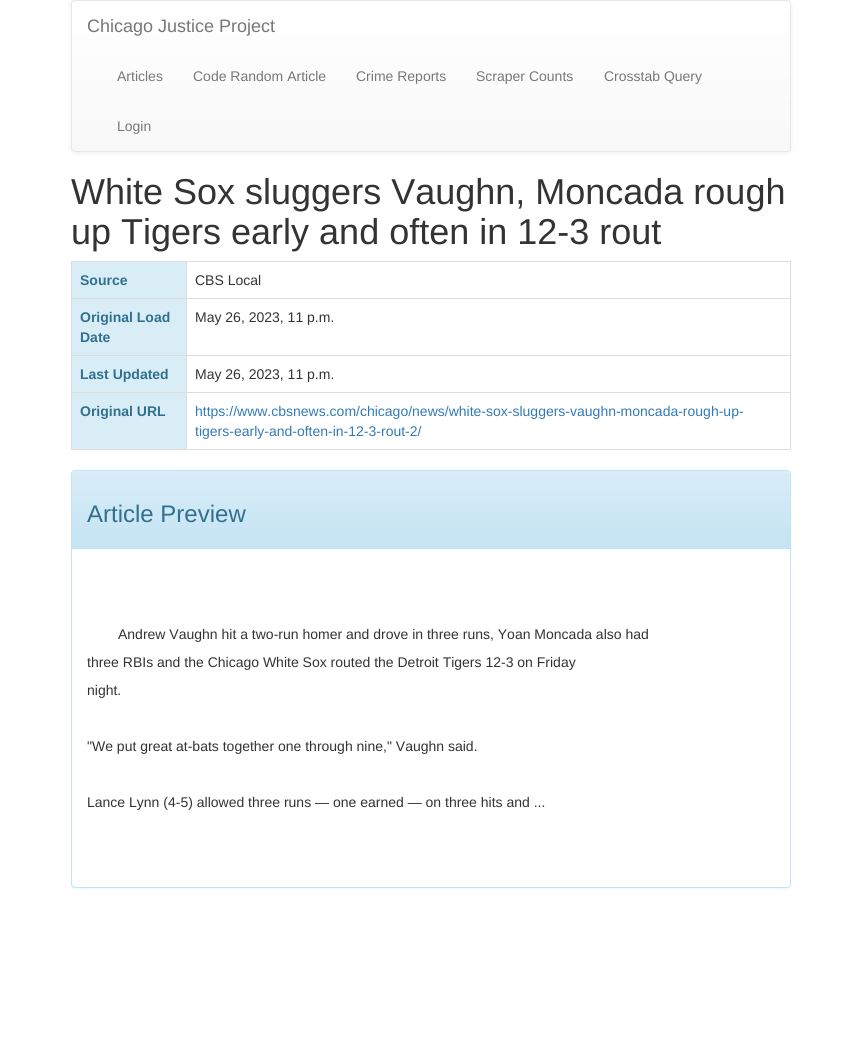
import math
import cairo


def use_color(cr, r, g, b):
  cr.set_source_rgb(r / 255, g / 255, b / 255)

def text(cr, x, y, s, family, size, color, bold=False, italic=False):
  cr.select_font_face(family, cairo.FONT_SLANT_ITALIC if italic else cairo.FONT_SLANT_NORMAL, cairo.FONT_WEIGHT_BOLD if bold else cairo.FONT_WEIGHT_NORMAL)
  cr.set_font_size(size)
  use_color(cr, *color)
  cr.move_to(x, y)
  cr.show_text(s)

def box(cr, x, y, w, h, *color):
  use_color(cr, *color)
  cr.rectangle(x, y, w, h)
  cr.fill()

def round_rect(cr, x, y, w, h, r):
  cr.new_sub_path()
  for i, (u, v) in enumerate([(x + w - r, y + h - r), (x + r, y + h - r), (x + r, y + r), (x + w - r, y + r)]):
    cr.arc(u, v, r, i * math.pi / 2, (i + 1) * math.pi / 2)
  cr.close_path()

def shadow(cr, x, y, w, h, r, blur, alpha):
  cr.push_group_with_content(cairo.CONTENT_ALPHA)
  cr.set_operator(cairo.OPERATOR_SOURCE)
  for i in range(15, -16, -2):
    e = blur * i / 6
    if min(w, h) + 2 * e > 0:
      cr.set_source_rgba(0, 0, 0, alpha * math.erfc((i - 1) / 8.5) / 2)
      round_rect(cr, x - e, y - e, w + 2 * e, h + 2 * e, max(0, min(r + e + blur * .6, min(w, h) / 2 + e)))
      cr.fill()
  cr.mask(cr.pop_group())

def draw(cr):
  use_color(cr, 255, 255, 255)
  cr.paint()
  use_color(cr, 0, 0, 0)
  shadow(cr, 71, 1, 720, 152, 4, 2.5, 0.07)
  cr.save()
  round_rect(cr, 71, 0, 720, 152, 4)
  cr.clip()
  gradient = cairo.LinearGradient(431, 1, 431, 151)
  gradient.add_color_stop_rgba(0, 1, 1, 1, 1)
  gradient.add_color_stop_rgba(1, 0.973, 0.973, 0.973, 1)
  cr.set_source(gradient)
  cr.rectangle(71, 1, 720, 150)
  cr.fill()
  cr.restore()
  round_rect(cr, 71.5, 0.5, 719, 151, 3.5)
  use_color(cr, 231, 231, 231)
  cr.set_line_width(1)
  cr.stroke()
  box(cr, 71, 261, 720, 1, 221, 221, 221)
  box(cr, 790, 261, 1, 189, 221, 221, 221)
  box(cr, 71, 449, 720, 1, 221, 221, 221)
  box(cr, 71, 261, 1, 189, 221, 221, 221)
  box(cr, 72, 262, 114, 36, 217, 237, 247)
  box(cr, 186, 298, 605, 1, 221, 221, 221)
  box(cr, 186, 355, 605, 1, 221, 221, 221)
  box(cr, 186, 392, 605, 1, 221, 221, 221)
  box(cr, 186, 392, 1, 58, 221, 221, 221)
  box(cr, 71, 392, 116, 1, 221, 221, 221)
  box(cr, 186, 355, 1, 38, 221, 221, 221)
  box(cr, 71, 355, 116, 1, 221, 221, 221)
  box(cr, 186, 298, 1, 58, 221, 221, 221)
  box(cr, 71, 298, 116, 1, 221, 221, 221)
  box(cr, 186, 261, 1, 38, 221, 221, 221)
  box(cr, 72, 299, 114, 56, 217, 237, 247)
  box(cr, 72, 356, 114, 36, 217, 237, 247)
  box(cr, 72, 393, 114, 56, 217, 237, 247)
  use_color(cr, 0, 0, 0)
  shadow(cr, 71, 471, 720, 418, 4, 1, 0.05)
  use_color(cr, 255, 255, 255)
  round_rect(cr, 71.5, 470.5, 719, 417, 3.5)
  cr.fill_preserve()
  use_color(cr, 188, 232, 241)
  cr.stroke()
  gradient = cairo.LinearGradient(431, 471, 431, 548)
  gradient.add_color_stop_rgba(0, 0.851, 0.929, 0.969, 1)
  gradient.add_color_stop_rgba(1, 0.769, 0.89, 0.953, 1)
  cr.set_source(gradient)
  cr.new_path()
  cr.move_to(75, 471)
  cr.line_to(787, 471)
  cr.curve_to(788.5, 471, 790, 472.5, 790, 474)
  cr.line_to(790, 548)
  cr.line_to(72, 548)
  cr.line_to(72, 474)
  cr.curve_to(72, 472.5, 73.5, 471, 75, 471)
  cr.close_path()
  cr.fill()
  box(cr, 72, 548, 718, 1, 188, 232, 241)
  text(cr, 87, 32, "Chicago Justice Project", "Liberation Sans", 18, (119, 119, 119))
  text(cr, 117, 81, "Articles", "Liberation Sans", 14, (119, 119, 119))
  text(cr, 193, 81, "Code Random Article", "Liberation Sans", 14, (119, 119, 119))
  text(cr, 356, 81, "Crime Reports", "Liberation Sans", 14, (119, 119, 119))
  text(cr, 476, 81, "Scraper Counts", "Liberation Sans", 14, (119, 119, 119))
  text(cr, 604, 81, "Crosstab Query", "Liberation Sans", 14, (119, 119, 119))
  text(cr, 117, 131, "Login", "Liberation Sans", 14, (119, 119, 119))
  text(cr, 71, 204, "White Sox sluggers Vaughn, Moncada rough", "Liberation Sans", 36, (51, 51, 51))
  text(cr, 71, 244, "up Tigers early and often in 12-3 rout", "Liberation Sans", 36, (51, 51, 51))
  text(cr, 80, 285, "Source", "Liberation Sans", 14, (49, 112, 143), bold=True)
  text(cr, 195, 285, "CBS Local", "Liberation Sans", 14, (51, 51, 51))
  text(cr, 80, 322, "Original Load", "Liberation Sans", 14, (49, 112, 143), bold=True)
  text(cr, 80, 342, "Date", "Liberation Sans", 14, (49, 112, 143), bold=True)
  text(cr, 195, 322, "May 26, 2023, 11 p.m.", "Liberation Sans", 14, (51, 51, 51))
  text(cr, 80, 379, "Last Updated", "Liberation Sans", 14, (49, 112, 143), bold=True)
  text(cr, 195, 379, "May 26, 2023, 11 p.m.", "Liberation Sans", 14, (51, 51, 51))
  text(cr, 80, 416, "Original URL", "Liberation Sans", 14, (49, 112, 143), bold=True)
  text(cr, 195, 416, "https://www.cbsnews.com/chicago/news/white-sox-sluggers-vaughn-moncada-rough-up-", "Liberation Sans", 14, (51, 122, 183))
  text(cr, 195, 436, "tigers-early-and-often-in-12-3-rout-2/", "Liberation Sans", 14, (51, 122, 183))
  text(cr, 87, 522, "Article Preview", "Liberation Sans", 24, (49, 112, 143))
  text(cr, 118, 639, "Andrew Vaughn hit a two-run homer and drove in three runs, Yoan Moncada also had", "Liberation Sans", 14, (51, 51, 51))
  text(cr, 87, 667, "three RBIs and the Chicago White Sox routed the Detroit Tigers 12-3 on Friday", "Liberation Sans", 14, (51, 51, 51))
  text(cr, 87, 695, "night.", "Liberation Sans", 14, (51, 51, 51))
  text(cr, 87, 751, "\"We put great at-bats together one through nine,\" Vaughn said.", "Liberation Sans", 14, (51, 51, 51))
  text(cr, 87, 807, "Lance Lynn (4-5) allowed three runs — one earned — on three hits and ...", "Liberation Sans", 14, (51, 51, 51))


surface = cairo.ImageSurface(cairo.FORMAT_RGB24, 862, 1040)
cr = cairo.Context(surface)
options = cairo.FontOptions()
options.set_hint_metrics(cairo.HINT_METRICS_OFF)
options.set_hint_style(cairo.HINT_STYLE_NONE)
cr.set_font_options(options)
cr.set_miter_limit(4)
draw(cr)
surface.write_to_png("out.png")
